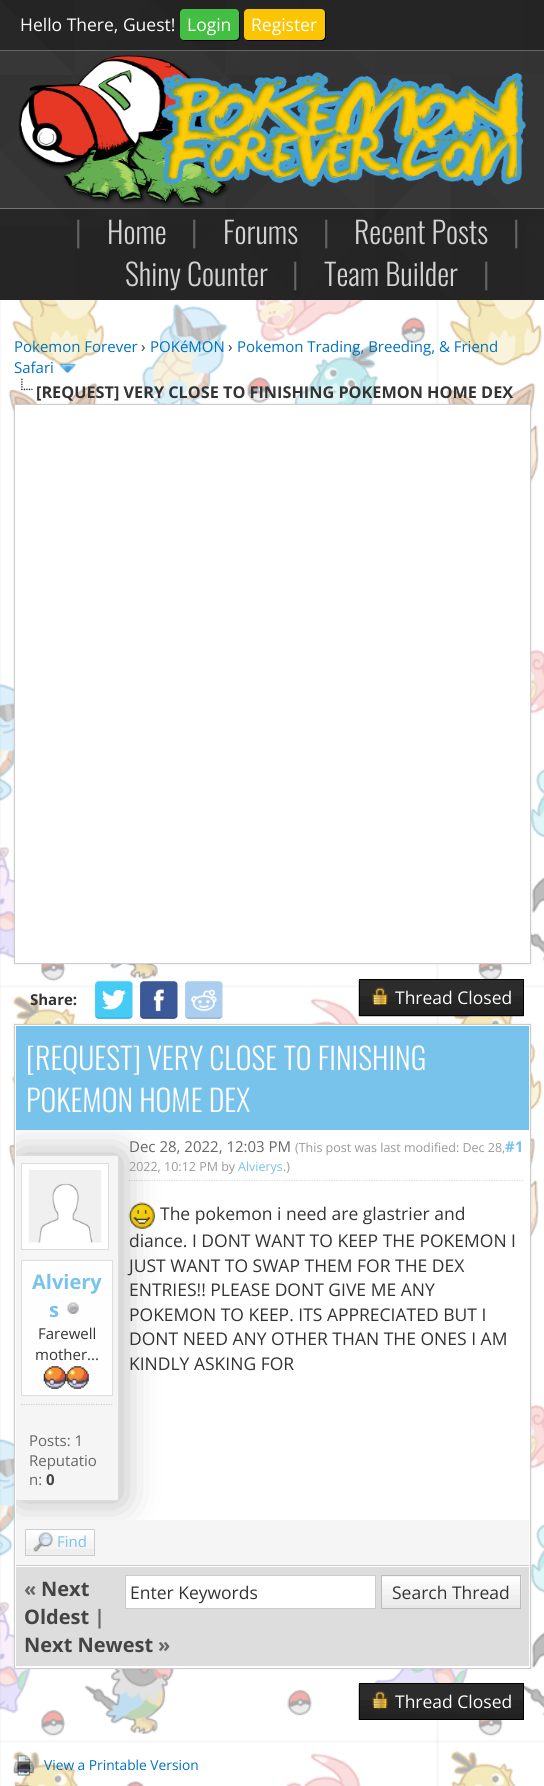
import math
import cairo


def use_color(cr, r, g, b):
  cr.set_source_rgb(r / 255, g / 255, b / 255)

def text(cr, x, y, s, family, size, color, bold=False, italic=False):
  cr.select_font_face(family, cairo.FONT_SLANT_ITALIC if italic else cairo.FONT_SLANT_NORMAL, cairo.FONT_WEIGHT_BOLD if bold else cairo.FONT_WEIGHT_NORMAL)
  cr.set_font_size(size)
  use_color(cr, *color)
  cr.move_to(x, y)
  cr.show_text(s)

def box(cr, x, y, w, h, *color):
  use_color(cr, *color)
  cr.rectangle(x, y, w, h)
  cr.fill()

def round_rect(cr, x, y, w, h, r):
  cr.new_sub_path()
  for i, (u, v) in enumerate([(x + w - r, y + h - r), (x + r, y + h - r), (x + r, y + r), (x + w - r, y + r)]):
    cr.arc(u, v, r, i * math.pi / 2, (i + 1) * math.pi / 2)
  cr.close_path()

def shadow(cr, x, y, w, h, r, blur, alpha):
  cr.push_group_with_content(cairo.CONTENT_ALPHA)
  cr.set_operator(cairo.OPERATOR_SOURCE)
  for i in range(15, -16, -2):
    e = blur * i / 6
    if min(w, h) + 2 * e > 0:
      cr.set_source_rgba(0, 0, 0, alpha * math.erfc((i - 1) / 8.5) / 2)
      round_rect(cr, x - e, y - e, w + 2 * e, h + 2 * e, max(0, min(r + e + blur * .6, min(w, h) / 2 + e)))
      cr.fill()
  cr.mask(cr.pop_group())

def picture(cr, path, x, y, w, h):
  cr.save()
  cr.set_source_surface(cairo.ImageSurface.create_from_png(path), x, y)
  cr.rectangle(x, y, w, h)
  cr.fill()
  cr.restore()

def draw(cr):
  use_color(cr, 255, 255, 255)
  cr.paint()
  picture(cr, "img_01.png", 0, 0, 544, 1786)
  cr.set_source_rgba(0, 0, 0, 0.3)
  cr.rectangle(0, 0, 544, 51)
  cr.fill()
  cr.set_source_rgba(1, 1, 1, 0.3)
  cr.rectangle(0, 50, 544, 1)
  cr.fill()
  use_color(cr, 0, 0, 0)
  cr.new_path()
  cr.move_to(182, 39)
  cr.curve_to(183, 40, 184, 41, 185, 41)
  cr.line_to(236, 41)
  cr.curve_to(238, 41, 240, 39, 240, 37)
  cr.line_to(240, 14)
  cr.curve_to(240, 13, 239, 11, 238, 11)
  cr.line_to(239, 12)
  cr.line_to(239, 36)
  cr.curve_to(239, 38, 237, 40, 235, 40)
  cr.line_to(184, 40)
  cr.close_path()
  cr.fill()
  use_color(cr, 67, 191, 67)
  round_rect(cr, 180, 9, 59, 31, 4)
  cr.fill()
  use_color(cr, 0, 0, 0)
  cr.new_path()
  cr.move_to(246, 40)
  cr.curve_to(247, 41, 248, 41, 249, 41)
  cr.line_to(322, 41)
  cr.curve_to(324, 41, 326, 39, 326, 37)
  cr.line_to(326, 14)
  cr.curve_to(326, 13, 326, 12, 325, 11)
  cr.line_to(325, 28)
  cr.curve_to(325, 43, 325, 40, 309, 40)
  cr.close_path()
  cr.fill()
  use_color(cr, 252, 197, 3)
  round_rect(cr, 244, 9, 81, 31, 4)
  cr.fill()
  cr.set_source_rgba(1, 1, 1, 0.3)
  cr.rectangle(0, 208, 544, 1)
  cr.fill()
  picture(cr, "img_02.png", 18, 55, 508, 152)
  cr.set_source_rgba(0, 0, 0, 0.3)
  cr.rectangle(0, 209, 544, 91)
  cr.fill()
  picture(cr, "img_03.png", 0, 300, 544, 1486)
  picture(cr, "img_04.png", 58, 363, 19, 10)
  picture(cr, "img_05.png", 21, 378, 12, 13)
  use_color(cr, 0, 0, 0)
  shadow(cr, 14, 404, 517, 560, 0, 1, 0.1)
  use_color(cr, 255, 255, 255)
  cr.rectangle(14.5, 404.5, 516, 559)
  cr.fill_preserve()
  use_color(cr, 204, 204, 204)
  cr.set_line_width(1)
  cr.stroke()
  picture(cr, "img_06.png", 95, 981, 38, 38)
  picture(cr, "img_07.png", 140, 981, 38, 38)
  picture(cr, "img_08.png", 185, 981, 38, 38)
  picture(cr, "img_09.png", 358, 980, 166, 37)
  cr.rectangle(359.5, 979.5, 164, 36)
  use_color(cr, 0, 0, 0)
  cr.stroke()
  picture(cr, "img_10.png", 372, 987, 16, 19)
  use_color(cr, 0, 0, 0)
  shadow(cr, 14, 1024, 517, 645, 0, 1, 0.1)
  use_color(cr, 255, 255, 255)
  cr.rectangle(14.5, 1024.5, 516, 644)
  cr.fill_preserve()
  use_color(cr, 204, 204, 204)
  cr.stroke()
  box(cr, 16, 1026, 513, 104, 120, 195, 235)
  cr.new_path()
  cr.move_to(129, 1180.5)
  cr.line_to(524, 1180.5)
  use_color(cr, 221, 221, 221)
  cr.set_line_width(1.2)
  cr.set_dash([1.25, 1.25])
  cr.stroke()
  picture(cr, "img_15.png", 128, 1202, 27, 27)
  cr.save()
  cr.rectangle(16, 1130, 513, 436)
  cr.clip()
  use_color(cr, 0, 0, 0)
  shadow(cr, 19, 1155, 102, 346, 0, 19, 0.3)
  cr.restore()
  box(cr, 16, 1156, 102, 344, 245, 245, 245)
  box(cr, 16, 1155, 103, 1, 221, 221, 221)
  box(cr, 118, 1155, 1, 346, 221, 221, 221)
  box(cr, 16, 1500, 103, 1, 221, 221, 221)
  use_color(cr, 255, 255, 255)
  cr.rectangle(21.5, 1163.5, 87, 86)
  cr.fill_preserve()
  use_color(cr, 221, 221, 221)
  cr.set_line_width(1)
  cr.set_dash([])
  cr.stroke()
  picture(cr, "img_11.png", 28, 1170, 74, 73)
  use_color(cr, 254, 254, 254)
  cr.rectangle(21.5, 1260.5, 91, 135)
  cr.fill_preserve()
  use_color(cr, 221, 221, 221)
  cr.stroke()
  picture(cr, "img_12.png", 67, 1302, 12, 12)
  picture(cr, "img_13.png", 43, 1366, 24, 23)
  picture(cr, "img_14.png", 66, 1366, 23, 23)
  cr.new_path()
  cr.move_to(21, 1404.5)
  cr.line_to(112.5, 1404.5)
  use_color(cr, 204, 204, 204)
  cr.set_line_width(1.2)
  cr.set_dash([1.25, 1.25])
  cr.stroke()
  box(cr, 16, 1520, 513, 45, 245, 245, 245)
  box(cr, 16, 1565, 513, 1, 204, 204, 204)
  box(cr, 26, 1549, 68, 6, 238, 238, 238)
  picture(cr, "img_16.png", 26, 1530, 68, 19)
  cr.rectangle(25.5, 1529.5, 69, 26)
  use_color(cr, 204, 204, 204)
  cr.set_line_width(1)
  cr.set_dash([])
  cr.stroke()
  picture(cr, "img_17.png", 33, 1532, 20, 20)
  box(cr, 16, 1567, 513, 99, 221, 221, 221)
  use_color(cr, 255, 255, 255)
  cr.rectangle(125.5, 1575.5, 250, 33)
  cr.fill_preserve()
  use_color(cr, 204, 204, 204)
  cr.stroke()
  picture(cr, "img_18.png", 382, 1576, 140, 33)
  cr.rectangle(381.5, 1575.5, 139, 33)
  use_color(cr, 187, 187, 187)
  cr.stroke()
  picture(cr, "img_19.png", 358, 1683, 165, 37)
  cr.rectangle(359.5, 1683.5, 164, 36)
  use_color(cr, 0, 0, 0)
  cr.stroke()
  picture(cr, "img_20.png", 372, 1691, 16, 19)
  picture(cr, "img_21.png", 13, 1755, 21, 21)
  picture(cr, "img_22.png", 15, 1785, 15, 1)
  text(cr, 20, 31, "Hello There, Guest!", "Open Sans", 17.5, (255, 255, 255))
  text(cr, 187, 31, "Login", "Open Sans", 17.5, (255, 255, 255))
  text(cr, 251, 31, "Register", "Open Sans", 17.5, (255, 255, 255))
  text(cr, 75, 244, "|", "Oswald Light", 30, (102, 102, 102))
  text(cr, 107, 244, "Home", "Oswald Light", 30, (211, 211, 211))
  text(cr, 191, 244, "|", "Oswald Light", 30, (102, 102, 102))
  text(cr, 223, 244, "Forums", "Oswald Light", 30, (211, 211, 211))
  text(cr, 323, 244, "|", "Oswald Light", 30, (102, 102, 102))
  text(cr, 354, 244, "Recent Posts", "Oswald Light", 30, (211, 211, 211))
  text(cr, 513, 244, "|", "Oswald Light", 30, (102, 102, 102))
  text(cr, 125, 286, "Shiny Counter", "Oswald Light", 30, (211, 211, 211))
  text(cr, 292, 286, "|", "Oswald Light", 30, (102, 102, 102))
  text(cr, 324, 286, "Team Builder", "Oswald Light", 30, (211, 211, 211))
  text(cr, 483, 286, "|", "Oswald Light", 30, (102, 102, 102))
  text(cr, 14, 352, "Pokemon Forever", "Open Sans", 15, (0, 114, 188))
  text(cr, 141, 352, "›", "Open Sans", 15, (51, 51, 51))
  text(cr, 150, 352, "POKéMON", "Open Sans", 15, (0, 114, 188))
  text(cr, 228, 352, "›", "Open Sans", 15, (51, 51, 51))
  text(cr, 237, 352, "Pokemon Trading, Breeding, & Friend", "Open Sans", 15, (0, 114, 188))
  text(cr, 14, 373, "Safari", "Open Sans", 15, (0, 114, 188))
  text(cr, 36, 398, "[REQUEST] VERY CLOSE TO FINISHING POKEMON HOME DEX", "Open Sans", 16.25, (51, 51, 51), bold=True)
  text(cr, 30, 1005, "Share:", "Open Sans", 15, (51, 51, 51), bold=True)
  text(cr, 395, 1004, "Thread Closed", "Open Sans", 17.5, (255, 255, 255))
  text(cr, 26, 1070, "[REQUEST] VERY CLOSE TO FINISHING", "Oswald Light", 30, (255, 255, 255))
  text(cr, 26, 1112, "POKEMON HOME DEX", "Oswald Light", 30, (255, 255, 255))
  text(cr, 32, 1289, "Alviery", "Open Sans", 20, (120, 195, 235), bold=True)
  text(cr, 49, 1317, "s", "Open Sans", 20, (120, 195, 235), bold=True)
  text(cr, 38, 1339, "Farewell", "Open Sans", 15, (51, 51, 51))
  text(cr, 35, 1360, "mother...", "Open Sans", 15, (51, 51, 51))
  text(cr, 29, 1446, "Posts: 1", "Open Sans", 15, (102, 102, 102))
  text(cr, 29, 1466, "Reputatio", "Open Sans", 15, (102, 102, 102))
  text(cr, 29, 1485, "n:", "Open Sans", 15, (102, 102, 102))
  text(cr, 46, 1485, "0", "Open Sans", 15, (68, 68, 68), bold=True)
  text(cr, 129, 1152, "Dec 28, 2022, 12:03 PM", "Open Sans", 15, (102, 102, 102))
  text(cr, 295, 1152, "(This post was last modified: Dec 28,", "Open Sans", 12.5, (153, 153, 153))
  text(cr, 505, 1152, "#1", "Open Sans", 15, (120, 195, 235), bold=True)
  text(cr, 129, 1171, "2022, 10:12 PM by", "Open Sans", 12.5, (153, 153, 153))
  text(cr, 238, 1171, "Alvierys", "Open Sans", 12.5, (120, 195, 235))
  text(cr, 283, 1171, ".)", "Open Sans", 12.5, (153, 153, 153))
  text(cr, 160, 1220, "The pokemon i need are glastrier and", "Open Sans", 17.5, (51, 51, 51))
  text(cr, 129, 1247, "diance. I DONT WANT TO KEEP THE POKEMON I", "Open Sans", 17.5, (51, 51, 51))
  text(cr, 129, 1272, "JUST WANT TO SWAP THEM FOR THE DEX", "Open Sans", 17.5, (51, 51, 51))
  text(cr, 129, 1296, "ENTRIES!! PLEASE DONT GIVE ME ANY", "Open Sans", 17.5, (51, 51, 51))
  text(cr, 129, 1321, "POKEMON TO KEEP. ITS APPRECIATED BUT I", "Open Sans", 17.5, (51, 51, 51))
  text(cr, 129, 1345, "DONT NEED ANY OTHER THAN THE ONES I AM", "Open Sans", 17.5, (51, 51, 51))
  text(cr, 129, 1370, "KINDLY ASKING FOR", "Open Sans", 17.5, (51, 51, 51))
  text(cr, 57, 1547, "Find", "Open Sans", 15, (120, 195, 235))
  text(cr, 24, 1596, "«", "Open Sans", 20, (102, 102, 102), bold=True)
  text(cr, 41, 1596, "Next", "Open Sans", 20, (68, 68, 68), bold=True)
  text(cr, 24, 1624, "Oldest", "Open Sans", 20, (68, 68, 68), bold=True)
  text(cr, 94, 1624, "|", "Open Sans", 20, (102, 102, 102), bold=True)
  text(cr, 24, 1652, "Next Newest", "Open Sans", 20, (68, 68, 68), bold=True)
  text(cr, 158, 1652, "»", "Open Sans", 20, (102, 102, 102), bold=True)
  text(cr, 130, 1599, "Enter Keywords", "Open Sans", 17.5, (51, 51, 51))
  text(cr, 392, 1599, "Search Thread", "Open Sans", 17.5, (51, 51, 51))
  text(cr, 395, 1708, "Thread Closed", "Open Sans", 17.5, (255, 255, 255))
  text(cr, 44, 1770, "View a Printable Version", "Open Sans", 13.75, (0, 114, 188))


surface = cairo.ImageSurface(cairo.FORMAT_RGB24, 544, 1786)
cr = cairo.Context(surface)
options = cairo.FontOptions()
options.set_hint_metrics(cairo.HINT_METRICS_OFF)
options.set_hint_style(cairo.HINT_STYLE_NONE)
cr.set_font_options(options)
cr.set_miter_limit(4)
draw(cr)
surface.write_to_png("out.png")
